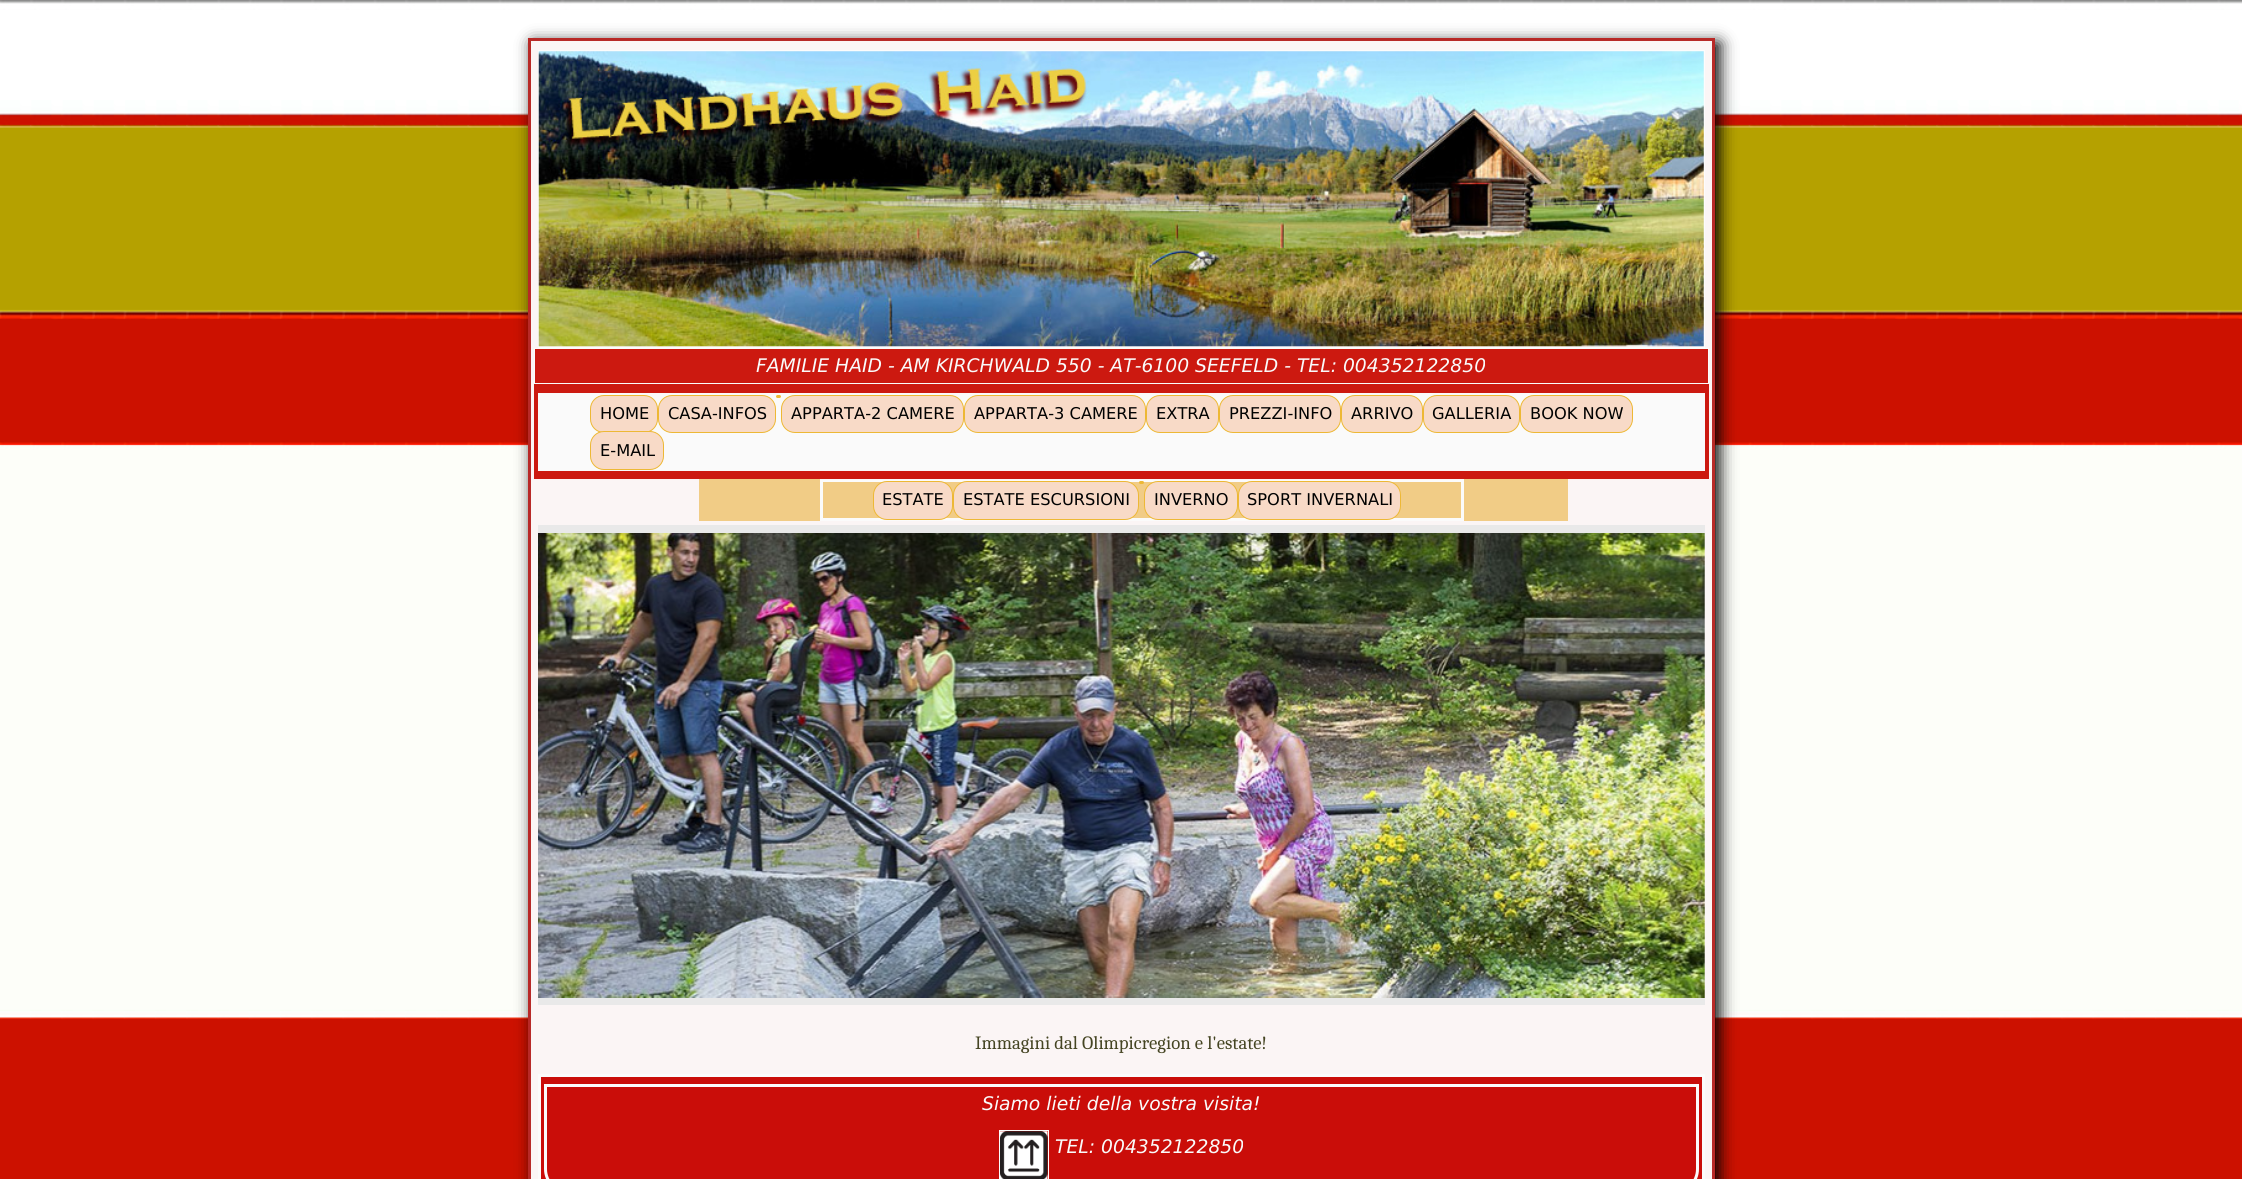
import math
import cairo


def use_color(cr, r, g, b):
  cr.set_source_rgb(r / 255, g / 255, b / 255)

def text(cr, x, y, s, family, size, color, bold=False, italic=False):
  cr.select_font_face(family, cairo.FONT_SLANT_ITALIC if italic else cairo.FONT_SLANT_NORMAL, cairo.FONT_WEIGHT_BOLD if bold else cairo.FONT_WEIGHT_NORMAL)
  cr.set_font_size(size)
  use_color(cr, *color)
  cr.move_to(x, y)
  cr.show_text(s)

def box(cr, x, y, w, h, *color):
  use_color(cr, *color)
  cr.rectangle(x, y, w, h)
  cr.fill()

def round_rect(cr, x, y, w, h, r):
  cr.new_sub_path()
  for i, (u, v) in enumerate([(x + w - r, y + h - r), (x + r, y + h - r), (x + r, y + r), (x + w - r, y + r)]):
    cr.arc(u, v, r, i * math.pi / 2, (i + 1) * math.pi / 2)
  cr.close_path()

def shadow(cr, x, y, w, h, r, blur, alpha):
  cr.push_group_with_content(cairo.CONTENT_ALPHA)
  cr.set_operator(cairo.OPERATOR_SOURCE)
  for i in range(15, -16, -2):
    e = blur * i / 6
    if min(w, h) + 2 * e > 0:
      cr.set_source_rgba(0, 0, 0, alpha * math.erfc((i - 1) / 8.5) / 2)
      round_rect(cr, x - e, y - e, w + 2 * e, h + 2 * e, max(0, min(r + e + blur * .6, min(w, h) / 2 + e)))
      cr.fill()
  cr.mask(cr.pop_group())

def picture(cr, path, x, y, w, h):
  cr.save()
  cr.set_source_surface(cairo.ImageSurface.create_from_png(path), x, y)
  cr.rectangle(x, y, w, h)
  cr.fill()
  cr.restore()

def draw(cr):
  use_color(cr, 255, 255, 255)
  cr.paint()
  picture(cr, "img_01.png", 0, 0, 2242, 1179)
  use_color(cr, 3, 3, 3)
  shadow(cr, 533, 43, 1187, 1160, 0, 8, 1)
  use_color(cr, 251, 245, 245)
  cr.rectangle(529.5, 39.5, 1184, 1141)
  cr.fill_preserve()
  use_color(cr, 184, 41, 39)
  cr.set_line_width(3)
  cr.stroke()
  cr.rectangle(538.5, 50.5, 1166, 297)
  use_color(cr, 252, 252, 252)
  cr.set_line_width(1)
  cr.stroke()
  picture(cr, "img_02.png", 538, 51, 1166, 296)
  use_color(cr, 204, 25, 16)
  cr.rectangle(534.5, 348.5, 1174, 35)
  cr.fill_preserve()
  use_color(cr, 251, 251, 251)
  cr.stroke()
  box(cr, 534, 384, 1175, 95, 204, 25, 16)
  box(cr, 538, 393, 1167, 78, 250, 250, 250)
  use_color(cr, 237, 184, 53)
  round_rect(cr, 776, 395, 5, 3, 1.5)
  cr.fill()
  use_color(cr, 248, 218, 199)
  round_rect(cr, 590.5, 395.5, 67, 37, 13.5)
  cr.fill_preserve()
  use_color(cr, 237, 184, 53)
  cr.stroke()
  use_color(cr, 248, 218, 199)
  round_rect(cr, 658.5, 395.5, 117, 37, 13.5)
  cr.fill_preserve()
  use_color(cr, 237, 184, 53)
  cr.stroke()
  use_color(cr, 248, 218, 199)
  round_rect(cr, 781.5, 395.5, 182, 37, 13.5)
  cr.fill_preserve()
  use_color(cr, 237, 184, 53)
  cr.stroke()
  use_color(cr, 248, 218, 199)
  round_rect(cr, 964.5, 395.5, 181, 37, 13.5)
  cr.fill_preserve()
  use_color(cr, 237, 184, 53)
  cr.stroke()
  use_color(cr, 248, 218, 199)
  round_rect(cr, 1146.5, 395.5, 72, 37, 13.5)
  cr.fill_preserve()
  use_color(cr, 237, 184, 53)
  cr.stroke()
  use_color(cr, 248, 218, 199)
  round_rect(cr, 1219.5, 395.5, 121, 37, 13.5)
  cr.fill_preserve()
  use_color(cr, 237, 184, 53)
  cr.stroke()
  use_color(cr, 248, 218, 199)
  round_rect(cr, 1341.5, 395.5, 81, 37, 13.5)
  cr.fill_preserve()
  use_color(cr, 237, 184, 53)
  cr.stroke()
  use_color(cr, 248, 218, 199)
  round_rect(cr, 1423.5, 395.5, 96, 37, 13.5)
  cr.fill_preserve()
  use_color(cr, 237, 184, 53)
  cr.stroke()
  use_color(cr, 248, 218, 199)
  round_rect(cr, 1520.5, 395.5, 112, 37, 13.5)
  cr.fill_preserve()
  use_color(cr, 237, 184, 53)
  cr.stroke()
  use_color(cr, 248, 218, 199)
  round_rect(cr, 590.5, 431.5, 73, 38, 13.5)
  cr.fill_preserve()
  use_color(cr, 237, 184, 53)
  cr.stroke()
  box(cr, 699, 479, 869, 42, 241, 204, 134)
  cr.rectangle(821.5, 480.5, 641, 39)
  use_color(cr, 251, 251, 251)
  cr.set_line_width(3)
  cr.stroke()
  use_color(cr, 237, 184, 53)
  round_rect(cr, 1139, 481, 5, 3, 1.5)
  cr.fill()
  use_color(cr, 248, 218, 199)
  round_rect(cr, 873.5, 481.5, 79, 38, 13.5)
  cr.fill_preserve()
  use_color(cr, 237, 184, 53)
  cr.set_line_width(1)
  cr.stroke()
  use_color(cr, 248, 218, 199)
  round_rect(cr, 953.5, 481.5, 185, 38, 13.5)
  cr.fill_preserve()
  use_color(cr, 237, 184, 53)
  cr.stroke()
  use_color(cr, 248, 218, 199)
  round_rect(cr, 1144.5, 481.5, 93, 38, 13.5)
  cr.fill_preserve()
  use_color(cr, 237, 184, 53)
  cr.stroke()
  use_color(cr, 248, 218, 199)
  round_rect(cr, 1238.5, 481.5, 162, 38, 13.5)
  cr.fill_preserve()
  use_color(cr, 237, 184, 53)
  cr.stroke()
  box(cr, 538, 525, 1167, 8, 233, 233, 233)
  box(cr, 538, 998, 1167, 7, 233, 233, 233)
  picture(cr, "img_03.png", 538, 533, 1167, 465)
  use_color(cr, 202, 13, 9)
  cr.rectangle(539.5, 1075.5, 1164, 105)
  cr.fill_preserve()
  use_color(cr, 251, 251, 251)
  cr.set_line_width(3)
  cr.stroke()
  cr.new_path()
  cr.move_to(545.5, 1085.5)
  cr.line_to(1697.5, 1085.5)
  cr.line_to(1697.5, 1169)
  cr.curve_to(1697.5, 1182, 1687, 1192.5, 1674, 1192.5)
  cr.line_to(569, 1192.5)
  cr.curve_to(556, 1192.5, 545.5, 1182, 545.5, 1169)
  cr.close_path()
  cr.stroke()
  cr.rectangle(999.5, 1130.5, 49, 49)
  use_color(cr, 252, 252, 252)
  cr.set_line_width(1)
  cr.stroke()
  picture(cr, "img_04.png", 1000, 1131, 48, 48)
  text(cr, 756, 372, "FAMILIE HAID - AM KIRCHWALD 550 - AT-6100 SEEFELD - TEL: 004352122850", "DejaVu Sans", 18.75, (250, 250, 250), italic=True)
  text(cr, 600, 419, "HOME", "DejaVu Sans", 16.25, (1, 1, 1))
  text(cr, 668, 419, "CASA-INFOS", "DejaVu Sans", 16.25, (1, 1, 1))
  text(cr, 791, 419, "APPARTA-2 CAMERE", "DejaVu Sans", 16.25, (1, 1, 1))
  text(cr, 974, 419, "APPARTA-3 CAMERE", "DejaVu Sans", 16.25, (1, 1, 1))
  text(cr, 1156, 419, "EXTRA", "DejaVu Sans", 16.25, (1, 1, 1))
  text(cr, 1229, 419, "PREZZI-INFO", "DejaVu Sans", 16.25, (1, 1, 1))
  text(cr, 1351, 419, "ARRIVO", "DejaVu Sans", 16.25, (1, 1, 1))
  text(cr, 1432, 419, "GALLERIA", "DejaVu Sans", 16.25, (1, 1, 1))
  text(cr, 1530, 419, "BOOK NOW", "DejaVu Sans", 16.25, (1, 1, 1))
  text(cr, 600, 456, "E-MAIL", "DejaVu Sans", 16.25, (1, 1, 1))
  text(cr, 882, 505, "ESTATE", "DejaVu Sans", 16.25, (1, 1, 1))
  text(cr, 963, 505, "ESTATE ESCURSIONI", "DejaVu Sans", 16.25, (1, 1, 1))
  text(cr, 1154, 505, "INVERNO", "DejaVu Sans", 16.25, (1, 1, 1))
  text(cr, 1247, 505, "SPORT INVERNALI", "DejaVu Sans", 16.25, (1, 1, 1))
  text(cr, 975, 1049, "Immagini dal Olimpicregion e l'estate!", "Caladea", 18.75, (69, 69, 35))
  text(cr, 982, 1110, "Siamo lieti della vostra visita!", "DejaVu Sans", 18.75, (250, 250, 250), italic=True)
  text(cr, 1055, 1153, "TEL: 004352122850", "DejaVu Sans", 18.75, (250, 250, 250), italic=True)


surface = cairo.ImageSurface(cairo.FORMAT_RGB24, 2242, 1179)
cr = cairo.Context(surface)
options = cairo.FontOptions()
options.set_hint_metrics(cairo.HINT_METRICS_OFF)
options.set_hint_style(cairo.HINT_STYLE_NONE)
cr.set_font_options(options)
cr.set_miter_limit(4)
draw(cr)
surface.write_to_png("out.png")
